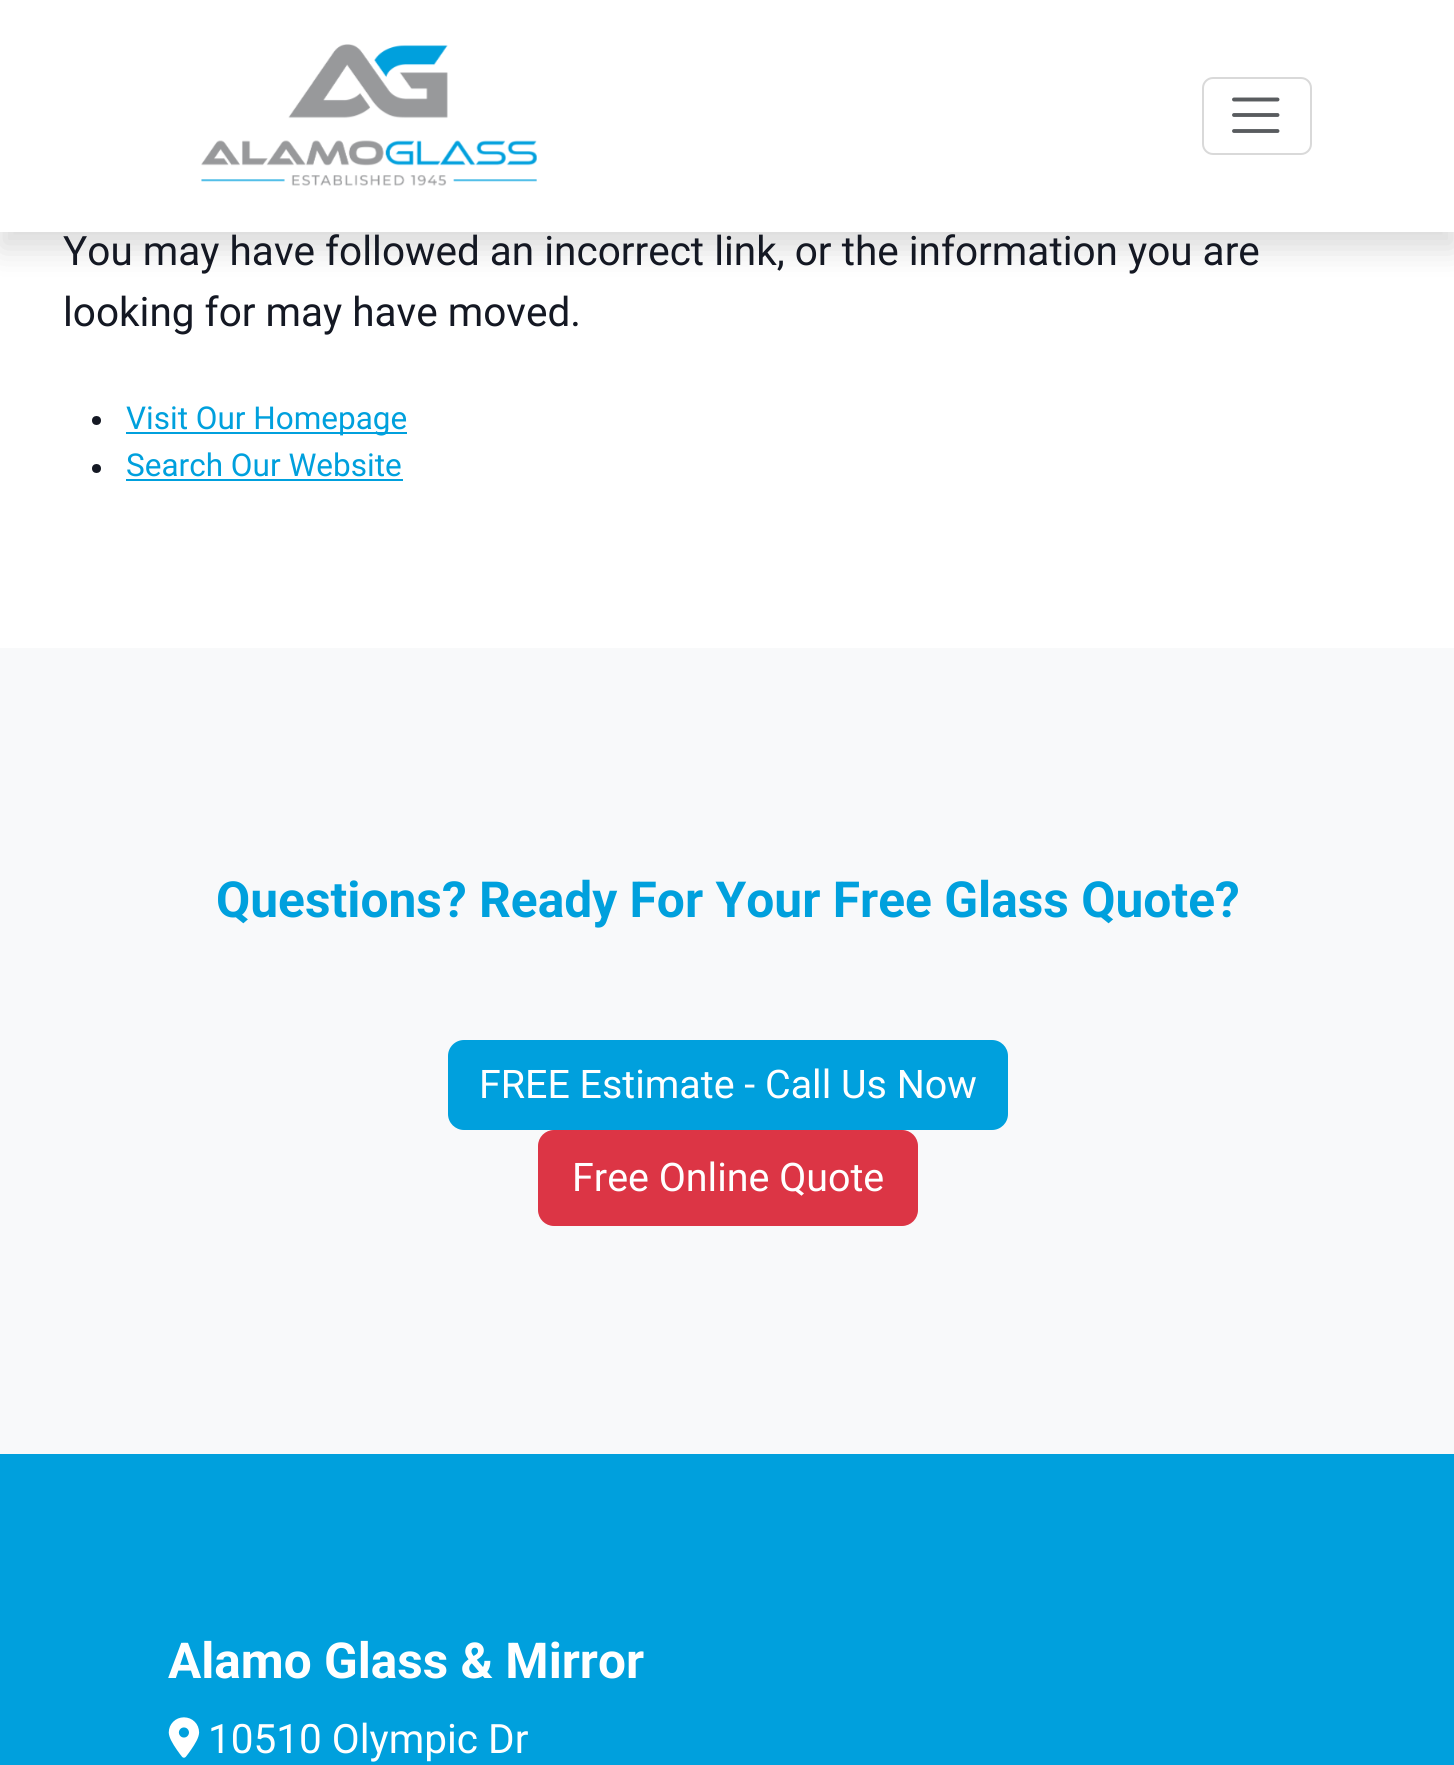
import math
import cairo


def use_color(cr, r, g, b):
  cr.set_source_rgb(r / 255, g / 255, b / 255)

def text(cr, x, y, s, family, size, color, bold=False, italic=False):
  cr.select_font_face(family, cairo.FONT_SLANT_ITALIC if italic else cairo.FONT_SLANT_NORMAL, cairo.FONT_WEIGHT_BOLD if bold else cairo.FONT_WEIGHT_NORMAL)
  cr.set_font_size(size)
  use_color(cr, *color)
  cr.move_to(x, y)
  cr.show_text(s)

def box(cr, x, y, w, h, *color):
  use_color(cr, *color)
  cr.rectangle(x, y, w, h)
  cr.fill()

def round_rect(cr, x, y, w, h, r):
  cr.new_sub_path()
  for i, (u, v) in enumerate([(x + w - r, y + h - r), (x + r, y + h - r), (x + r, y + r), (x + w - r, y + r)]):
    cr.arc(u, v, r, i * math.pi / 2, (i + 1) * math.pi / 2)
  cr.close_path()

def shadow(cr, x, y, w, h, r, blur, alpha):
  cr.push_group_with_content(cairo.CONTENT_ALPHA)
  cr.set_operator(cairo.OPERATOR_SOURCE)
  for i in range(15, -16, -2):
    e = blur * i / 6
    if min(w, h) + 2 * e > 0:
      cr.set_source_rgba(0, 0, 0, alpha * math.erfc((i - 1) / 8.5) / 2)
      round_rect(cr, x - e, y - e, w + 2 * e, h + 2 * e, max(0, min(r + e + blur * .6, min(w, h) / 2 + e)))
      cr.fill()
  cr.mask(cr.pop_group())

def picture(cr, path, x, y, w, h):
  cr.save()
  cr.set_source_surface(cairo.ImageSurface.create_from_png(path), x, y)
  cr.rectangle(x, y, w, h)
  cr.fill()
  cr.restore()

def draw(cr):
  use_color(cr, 255, 255, 255)
  cr.paint()
  use_color(cr, 0, 0, 0)
  shadow(cr, 0, 16, 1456, 232, 0, 16, 0.15)
  box(cr, 0, 0, 1454, 232, 255, 255, 255)
  picture(cr, "img_01.png", 201, 44, 336, 142)
  round_rect(cr, 1203, 78, 108, 76, 10)
  use_color(cr, 217, 217, 217)
  cr.stroke()
  cr.new_path()
  cr.move_to(1234, 99.5)
  cr.line_to(1277.5, 99.5)
  cr.move_to(1234, 115)
  cr.line_to(1277.5, 115)
  cr.move_to(1234, 131)
  cr.line_to(1277.5, 131)
  use_color(cr, 89, 92, 95)
  cr.set_line_width(3.9)
  cr.set_line_cap(cairo.LINE_CAP_ROUND)
  cr.stroke()
  use_color(cr, 20, 24, 35)
  cr.arc(96.5, 420.5, 4.5, 0, 2 * math.pi)
  cr.fill()
  box(cr, 126, 432, 281, 2, 0, 160, 221)
  use_color(cr, 20, 24, 35)
  cr.arc(96.5, 468.5, 4.5, 0, 2 * math.pi)
  cr.fill()
  box(cr, 126, 479, 277, 2, 0, 160, 221)
  box(cr, 0, 648, 1454, 806, 248, 249, 250)
  use_color(cr, 0, 160, 221)
  round_rect(cr, 448, 1040, 560, 90, 16)
  cr.fill()
  use_color(cr, 220, 53, 69)
  round_rect(cr, 539, 1131, 378, 94, 15)
  cr.fill_preserve()
  cr.set_line_width(2)
  cr.set_line_cap(cairo.LINE_CAP_BUTT)
  cr.stroke()
  box(cr, 0, 1454, 1454, 311, 0, 160, 221)
  picture(cr, "img_02.png", 168, 1717, 32, 41)
  text(cr, 63, 265, "You may have followed an incorrect link, or the information you are", "Roboto", 40.5, (20, 24, 35))
  text(cr, 63, 326, "looking for may have moved.", "Roboto", 40.5, (20, 24, 35))
  text(cr, 126, 429, "Visit Our Homepage", "Roboto", 31.5, (0, 160, 221))
  text(cr, 126, 476, "Search Our Website", "Roboto", 31.5, (0, 160, 221))
  text(cr, 216, 917, "Questions? Ready For Your Free Glass Quote?", "Roboto", 49.7, (0, 160, 221), bold=True)
  text(cr, 479, 1098, "FREE Estimate - Call Us Now", "Roboto", 39.4, (255, 255, 255))
  text(cr, 572, 1191, "Free Online Quote", "Roboto", 39.4, (255, 255, 255))
  text(cr, 168, 1678, "Alamo Glass & Mirror", "Roboto", 49.5, (255, 255, 255), bold=True)
  text(cr, 208, 1753, "10510 Olympic Dr", "Roboto", 40.5, (255, 255, 255))


surface = cairo.ImageSurface(cairo.FORMAT_RGB24, 1454, 1765)
cr = cairo.Context(surface)
options = cairo.FontOptions()
options.set_hint_metrics(cairo.HINT_METRICS_OFF)
options.set_hint_style(cairo.HINT_STYLE_NONE)
cr.set_font_options(options)
cr.set_miter_limit(4)
draw(cr)
surface.write_to_png("out.png")
